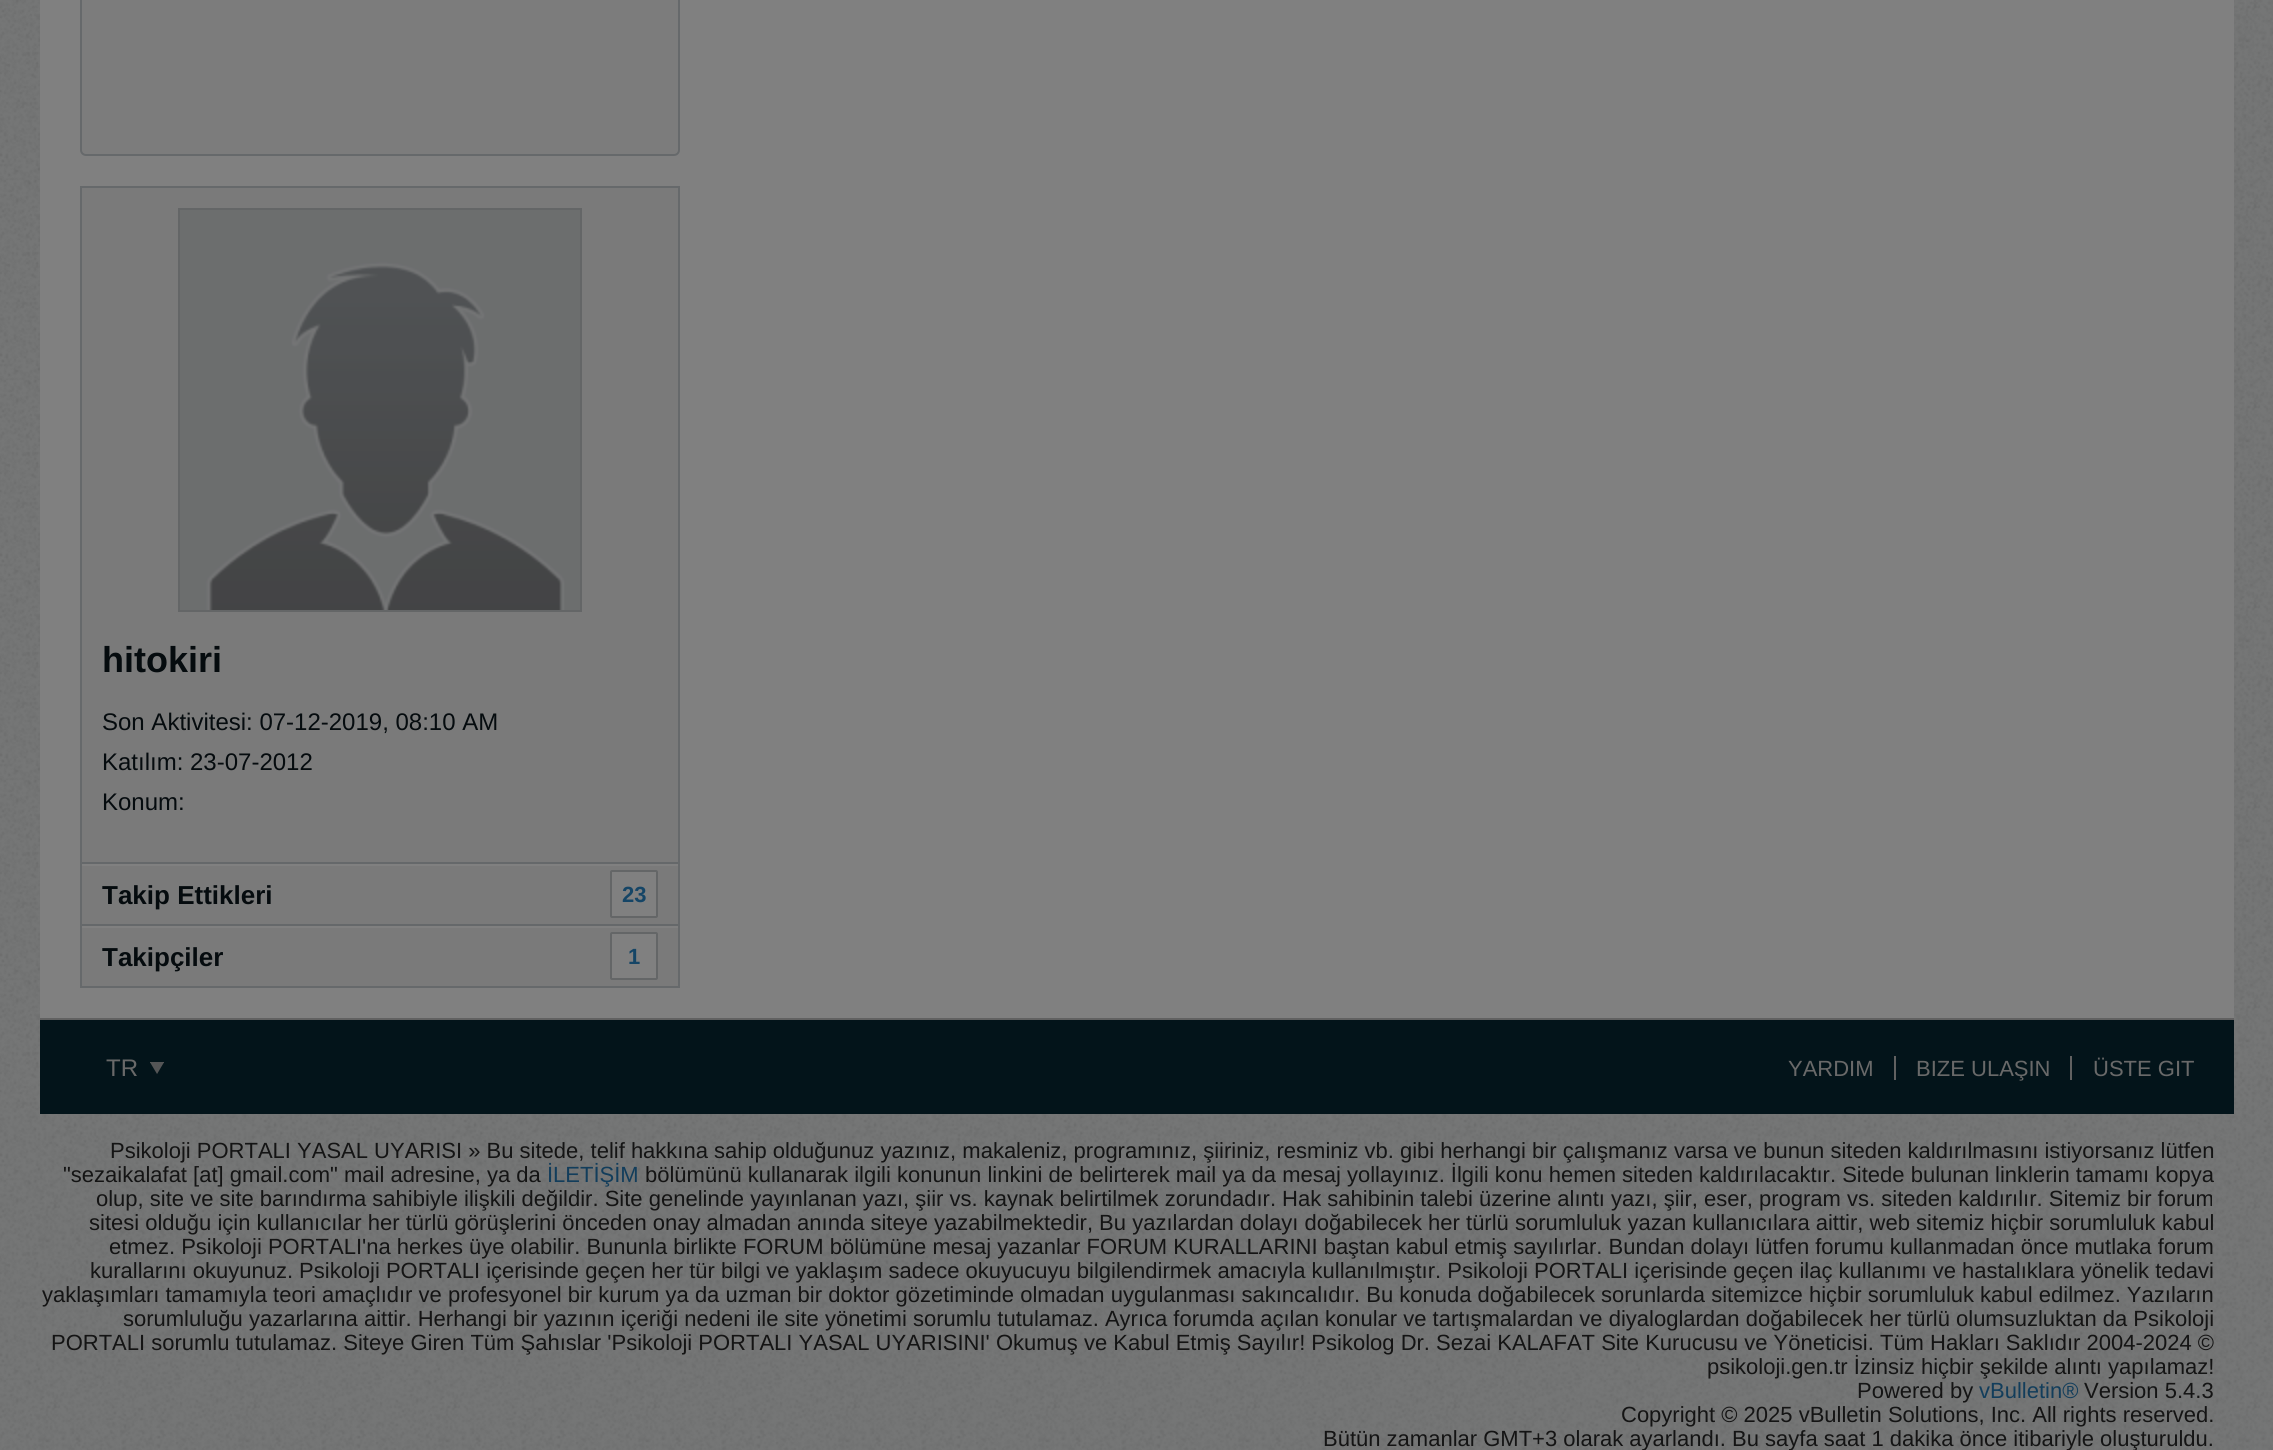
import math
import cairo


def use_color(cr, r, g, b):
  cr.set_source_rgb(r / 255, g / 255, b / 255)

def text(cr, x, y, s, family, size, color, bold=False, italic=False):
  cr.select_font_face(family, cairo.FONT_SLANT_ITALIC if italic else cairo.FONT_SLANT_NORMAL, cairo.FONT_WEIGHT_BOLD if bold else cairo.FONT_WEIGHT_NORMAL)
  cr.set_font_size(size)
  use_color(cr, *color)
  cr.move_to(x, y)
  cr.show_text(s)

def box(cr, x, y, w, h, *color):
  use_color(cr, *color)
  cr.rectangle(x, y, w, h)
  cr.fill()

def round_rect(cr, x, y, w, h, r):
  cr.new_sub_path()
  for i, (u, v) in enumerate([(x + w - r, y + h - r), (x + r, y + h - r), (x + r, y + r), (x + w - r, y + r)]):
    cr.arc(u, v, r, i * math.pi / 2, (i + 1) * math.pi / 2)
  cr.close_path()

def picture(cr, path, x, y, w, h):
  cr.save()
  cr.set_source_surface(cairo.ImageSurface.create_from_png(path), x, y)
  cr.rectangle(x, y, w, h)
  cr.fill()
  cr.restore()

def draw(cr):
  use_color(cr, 117, 118, 118)
  cr.paint()
  picture(cr, "img_01.png", 0, 0, 2273, 1450)
  box(cr, 40, 0, 2194, 1018, 128, 128, 128)
  use_color(cr, 124, 124, 124)
  round_rect(cr, 81, -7, 598, 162, 5)
  cr.fill_preserve()
  use_color(cr, 102, 105, 107)
  cr.stroke()
  cr.rectangle(81, 187, 598, 800)
  cr.stroke()
  box(cr, 82, 188, 596, 798, 122, 122, 122)
  cr.rectangle(179, 209, 402, 402)
  use_color(cr, 100, 102, 103)
  cr.stroke()
  picture(cr, "img_02.png", 180, 210, 400, 400)
  box(cr, 82, 862, 596, 2, 101, 104, 106)
  box(cr, 82, 864, 596, 2, 128, 128, 128)
  box(cr, 82, 924, 596, 2, 101, 104, 106)
  use_color(cr, 128, 128, 128)
  round_rect(cr, 611, 871, 46, 46, 1)
  cr.fill_preserve()
  use_color(cr, 100, 102, 103)
  cr.stroke()
  box(cr, 82, 926, 596, 2, 128, 128, 128)
  round_rect(cr, 611, 933, 46, 46, 1)
  cr.fill_preserve()
  use_color(cr, 100, 102, 103)
  cr.stroke()
  box(cr, 40, 1020, 2194, 94, 3, 20, 26)
  box(cr, 40, 1018, 2194, 2, 97, 97, 97)
  picture(cr, "img_03.png", 150, 1062, 14, 12)
  box(cr, 1894, 1056, 2, 24, 97, 97, 97)
  box(cr, 2070, 1056, 2, 24, 97, 97, 97)
  text(cr, 102, 672, "hitokiri", "Liberation Sans", 36, (5, 11, 14), bold=True)
  text(cr, 102, 730, "Son Aktivitesi: 07-12-2019, 08:10 AM", "Liberation Sans", 24, (5, 11, 14))
  text(cr, 102, 770, "Katılım: 23-07-2012", "Liberation Sans", 24, (5, 11, 14))
  text(cr, 102, 810, "Konum:", "Liberation Sans", 24, (5, 11, 14))
  text(cr, 102, 904, "Takip Ettikleri", "Liberation Sans", 26, (5, 11, 14), bold=True)
  text(cr, 622, 902, "23", "Liberation Sans", 22, (21, 69, 102), bold=True)
  text(cr, 102, 966, "Takipçiler", "Liberation Sans", 26, (5, 11, 14), bold=True)
  text(cr, 628, 964, "1", "Liberation Sans", 22, (21, 69, 102), bold=True)
  text(cr, 106, 1076, "TR", "Liberation Sans", 24, (105, 105, 105))
  text(cr, 1788, 1076, "YARDIM", "Liberation Sans", 22, (105, 105, 105))
  text(cr, 1916, 1076, "BIZE ULAŞIN", "Liberation Sans", 22, (105, 105, 105))
  text(cr, 2093, 1076, "ÜSTE GIT", "Liberation Sans", 22, (105, 105, 105))
  text(cr, 110, 1158, "Psikoloji PORTALI YASAL UYARISI » Bu sitede, telif hakkına sahip olduğunuz yazınız, makaleniz, programınız, şiiriniz, resminiz vb. gibi herhangi bir çalışmanız varsa ve bunun siteden kaldırılmasını istiyorsanız lütfen", "Liberation Sans", 22, (20, 20, 20))
  text(cr, 63, 1182, "\"sezaikalafat [at] gmail.com\" mail adresine, ya da", "Liberation Sans", 22, (20, 20, 20))
  text(cr, 547, 1182, "İLETİŞİM", "Liberation Sans", 22, (18, 61, 91))
  text(cr, 645, 1182, "bölümünü kullanarak ilgili konunun linkini de belirterek mail ya da mesaj yollayınız. İlgili konu hemen siteden kaldırılacaktır. Sitede bulunan linklerin tamamı kopya", "Liberation Sans", 22, (20, 20, 20))
  text(cr, 96, 1206, "olup, site ve site barındırma sahibiyle ilişkili değildir. Site genelinde yayınlanan yazı, şiir vs. kaynak belirtilmek zorundadır. Hak sahibinin talebi üzerine alıntı yazı, şiir, eser, program vs. siteden kaldırılır. Sitemiz bir forum", "Liberation Sans", 22, (20, 20, 20))
  text(cr, 89, 1230, "sitesi olduğu için kullanıcılar her türlü görüşlerini önceden onay almadan anında siteye yazabilmektedir, Bu yazılardan dolayı doğabilecek her türlü sorumluluk yazan kullanıcılara aittir, web sitemiz hiçbir sorumluluk kabul", "Liberation Sans", 22, (20, 20, 20))
  text(cr, 109, 1254, "etmez. Psikoloji PORTALI'na herkes üye olabilir. Bununla birlikte FORUM bölümüne mesaj yazanlar FORUM KURALLARINI baştan kabul etmiş sayılırlar. Bundan dolayı lütfen forumu kullanmadan önce mutlaka forum", "Liberation Sans", 22, (20, 20, 20))
  text(cr, 90, 1278, "kurallarını okuyunuz. Psikoloji PORTALI içerisinde geçen her tür bilgi ve yaklaşım sadece okuyucuyu bilgilendirmek amacıyla kullanılmıştır. Psikoloji PORTALI içerisinde geçen ilaç kullanımı ve hastalıklara yönelik tedavi", "Liberation Sans", 22, (20, 20, 20))
  text(cr, 42, 1302, "yaklaşımları tamamıyla teori amaçlıdır ve profesyonel bir kurum ya da uzman bir doktor gözetiminde olmadan uygulanması sakıncalıdır. Bu konuda doğabilecek sorunlarda sitemizce hiçbir sorumluluk kabul edilmez. Yazıların", "Liberation Sans", 22, (20, 20, 20))
  text(cr, 123, 1326, "sorumluluğu yazarlarına aittir. Herhangi bir yazının içeriği nedeni ile site yönetimi sorumlu tutulamaz. Ayrıca forumda açılan konular ve tartışmalardan ve diyaloglardan doğabilecek her türlü olumsuzluktan da Psikoloji", "Liberation Sans", 22, (20, 20, 20))
  text(cr, 51, 1350, "PORTALI sorumlu tutulamaz. Siteye Giren Tüm Şahıslar 'Psikoloji PORTALI YASAL UYARISINI' Okumuş ve Kabul Etmiş Sayılır! Psikolog Dr. Sezai KALAFAT Site Kurucusu ve Yöneticisi. Tüm Hakları Saklıdır 2004-2024 ©", "Liberation Sans", 22, (20, 20, 20))
  text(cr, 1707, 1374, "psikoloji.gen.tr İzinsiz hiçbir şekilde alıntı yapılamaz!", "Liberation Sans", 22, (20, 20, 20))
  text(cr, 1857, 1398, "Powered by", "Liberation Sans", 22, (20, 20, 20))
  text(cr, 1979, 1398, "vBulletin®", "Liberation Sans", 22, (18, 61, 91))
  text(cr, 2084, 1398, "Version 5.4.3", "Liberation Sans", 22, (20, 20, 20))
  text(cr, 1621, 1422, "Copyright © 2025 vBulletin Solutions, Inc. All rights reserved.", "Liberation Sans", 22, (20, 20, 20))
  text(cr, 1323, 1446, "Bütün zamanlar GMT+3 olarak ayarlandı. Bu sayfa saat 1 dakika önce itibariyle oluşturuldu.", "Liberation Sans", 22, (20, 20, 20))


surface = cairo.ImageSurface(cairo.FORMAT_RGB24, 2273, 1450)
cr = cairo.Context(surface)
options = cairo.FontOptions()
options.set_hint_metrics(cairo.HINT_METRICS_OFF)
options.set_hint_style(cairo.HINT_STYLE_NONE)
cr.set_font_options(options)
cr.set_miter_limit(4)
draw(cr)
surface.write_to_png("out.png")
